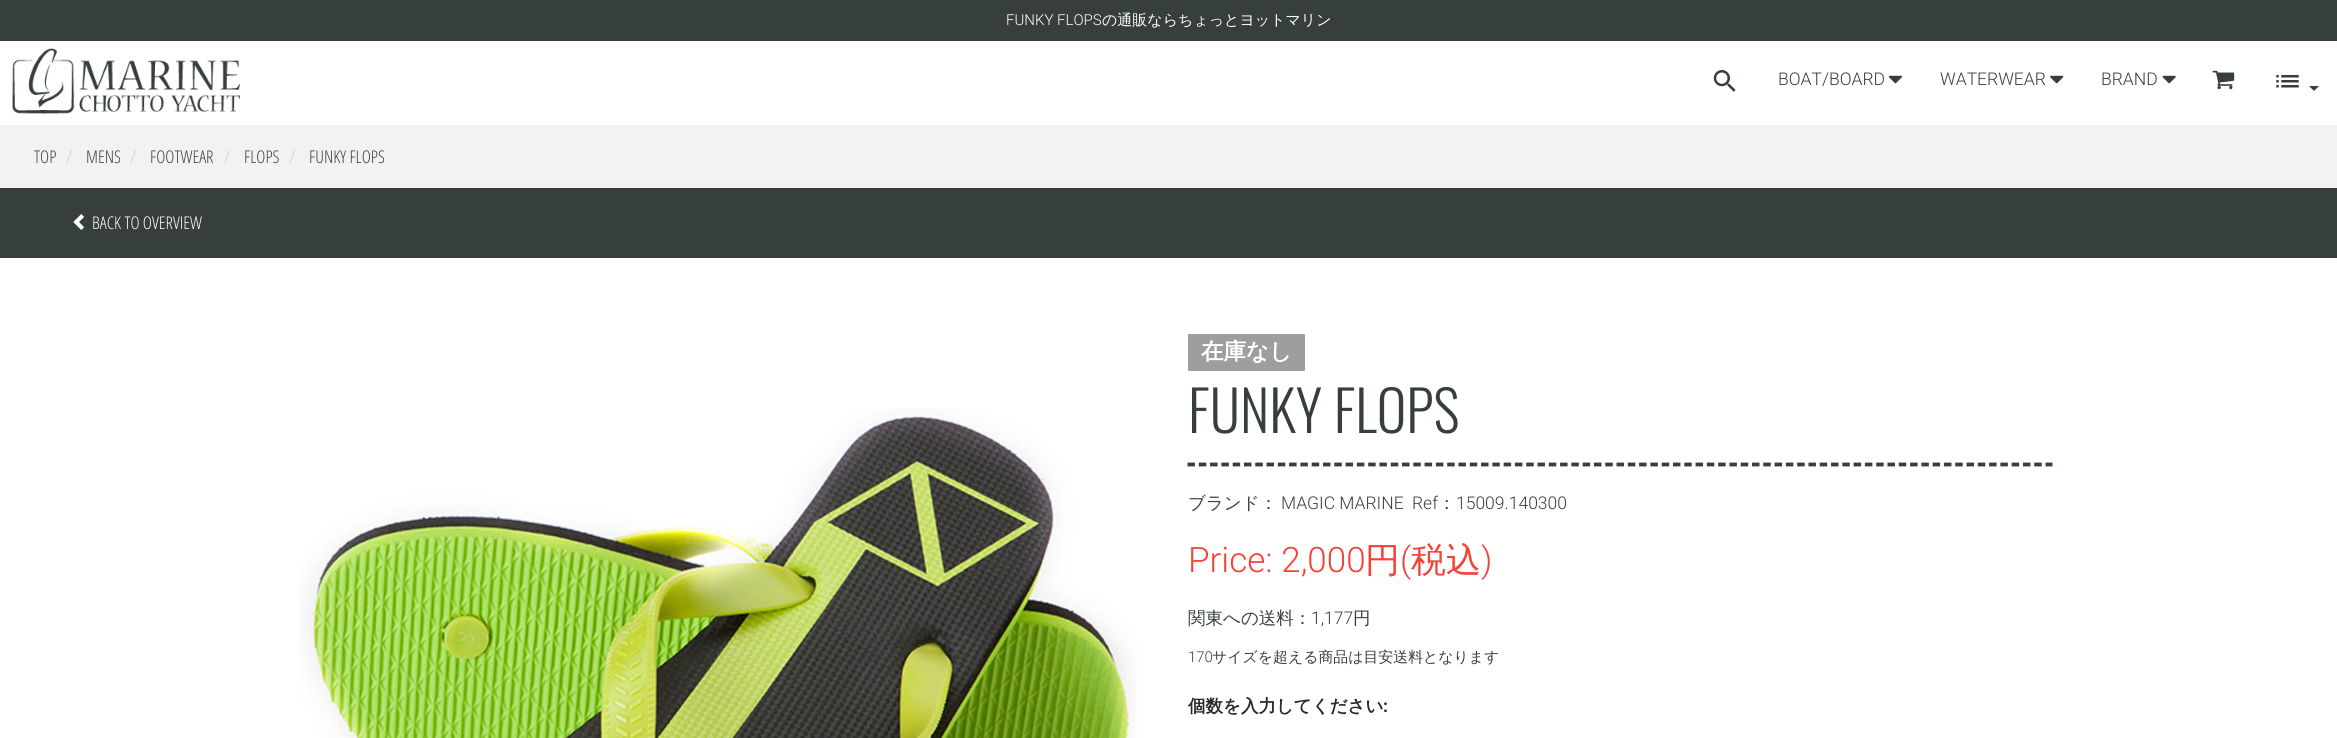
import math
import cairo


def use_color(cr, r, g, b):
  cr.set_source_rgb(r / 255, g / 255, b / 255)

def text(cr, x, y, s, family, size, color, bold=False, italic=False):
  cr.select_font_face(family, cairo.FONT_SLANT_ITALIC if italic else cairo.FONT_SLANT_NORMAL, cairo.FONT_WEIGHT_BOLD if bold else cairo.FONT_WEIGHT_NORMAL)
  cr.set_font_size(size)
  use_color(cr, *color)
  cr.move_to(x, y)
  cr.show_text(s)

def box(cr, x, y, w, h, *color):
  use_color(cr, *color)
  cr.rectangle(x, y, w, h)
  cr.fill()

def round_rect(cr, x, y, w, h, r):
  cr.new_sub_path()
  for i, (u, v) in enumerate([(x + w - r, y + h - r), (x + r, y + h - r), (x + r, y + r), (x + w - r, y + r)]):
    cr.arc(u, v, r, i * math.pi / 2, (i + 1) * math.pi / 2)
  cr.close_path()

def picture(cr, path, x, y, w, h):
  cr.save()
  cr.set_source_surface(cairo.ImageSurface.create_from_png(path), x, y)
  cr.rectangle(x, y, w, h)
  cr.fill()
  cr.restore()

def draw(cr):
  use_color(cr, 55, 63, 62)
  cr.paint()
  box(cr, 0, 41, 2337, 84, 255, 255, 255)
  picture(cr, "img_01.png", 12, 48, 228, 67)
  picture(cr, "img_02.png", 1713, 70, 23, 22)
  picture(cr, "img_03.png", 1888, 75, 14, 9)
  picture(cr, "img_04.png", 2050, 75, 14, 9)
  picture(cr, "img_05.png", 2162, 75, 14, 9)
  picture(cr, "img_06.png", 2212, 70, 23, 20)
  picture(cr, "img_07.png", 2276, 75, 23, 13)
  use_color(cr, 55, 63, 62)
  cr.new_path()
  cr.move_to(2309, 86)
  cr.line_to(2319, 86)
  cr.line_to(2314, 91)
  cr.close_path()
  cr.fill()
  box(cr, 0, 125, 2337, 63, 242, 242, 242)
  picture(cr, "img_08.png", 73, 214, 12, 16)
  box(cr, 0, 258, 2337, 480, 255, 255, 255)
  picture(cr, "img_09.png", 299, 408, 838, 330)
  use_color(cr, 158, 158, 158)
  round_rect(cr, 1188, 334, 117, 37, 1)
  cr.fill()
  cr.new_path()
  cr.move_to(1187.5, 464.5)
  cr.line_to(2052.5, 464.5)
  use_color(cr, 55, 63, 62)
  cr.set_line_width(3.8)
  cr.set_dash([7.5, 3.79])
  cr.stroke()
  text(cr, 1006, 25, "FUNKY FLOPS", "Roboto Light", 15, (255, 255, 255))
  text(cr, 1102, 25, "の通販ならちょっとヨットマリン", "WenQuanYi Zen Hei Medium", 15, (255, 255, 255))
  text(cr, 1778, 85, "BOAT/BOARD", "Roboto Light", 17.5, (55, 63, 62))
  text(cr, 1940, 85, "WATERWEAR", "Roboto Light", 17.5, (55, 63, 62))
  text(cr, 2101, 85, "BRAND", "Roboto Light", 17.5, (55, 63, 62))
  text(cr, 34, 163, "TOP", "Open Sans Condensed Light", 17.5, (55, 63, 62))
  text(cr, 66, 163, "/", "Open Sans Condensed Light", 17.5, (204, 204, 204))
  text(cr, 86, 163, "MENS", "Open Sans Condensed Light", 17.5, (55, 63, 62))
  text(cr, 130, 163, "/", "Open Sans Condensed Light", 17.5, (204, 204, 204))
  text(cr, 150, 163, "FOOTWEAR", "Open Sans Condensed Light", 17.5, (55, 63, 62))
  text(cr, 224, 163, "/", "Open Sans Condensed Light", 17.5, (204, 204, 204))
  text(cr, 244, 163, "FLOPS", "Open Sans Condensed Light", 17.5, (55, 63, 62))
  text(cr, 289, 163, "/", "Open Sans Condensed Light", 17.5, (204, 204, 204))
  text(cr, 309, 163, "FUNKY FLOPS", "Open Sans Condensed Light", 17.5, (55, 63, 62))
  text(cr, 92, 229, "BACK TO OVERVIEW", "Open Sans Condensed Light", 17.5, (255, 255, 255))
  text(cr, 1201, 359, "在庫なし", "WenQuanYi Zen Hei", 22.5, (255, 255, 255), bold=True)
  text(cr, 1188, 433, "FUNKY FLOPS", "Oswald Light", 56.25, (55, 63, 62))
  text(cr, 1188, 509, "ブランド：", "WenQuanYi Zen Hei Medium", 17.5, (55, 63, 62))
  text(cr, 1281, 509, "MAGIC MARINE", "Roboto Light", 17.5, (55, 63, 62))
  text(cr, 1412, 509, "Ref", "Roboto Light", 17.5, (55, 63, 62))
  text(cr, 1438, 509, "：", "WenQuanYi Zen Hei Medium", 17.5, (55, 63, 62))
  text(cr, 1456, 509, "15009.140300", "Roboto Light", 17.5, (55, 63, 62))
  text(cr, 1188, 572, "Price: 2,000", "Roboto Light", 35, (244, 67, 54))
  text(cr, 1365, 572, "円", "WenQuanYi Zen Hei Medium", 35, (244, 67, 54))
  text(cr, 1400, 572, "(", "Roboto Light", 35, (244, 67, 54))
  text(cr, 1411, 572, "税込", "WenQuanYi Zen Hei Medium", 35, (244, 67, 54))
  text(cr, 1481, 572, ")", "Roboto Light", 35, (244, 67, 54))
  text(cr, 1188, 624, "関東への送料：", "WenQuanYi Zen Hei Medium", 17.5, (55, 63, 62))
  text(cr, 1311, 624, "1,177", "Roboto Light", 17.5, (55, 63, 62))
  text(cr, 1353, 624, "円", "WenQuanYi Zen Hei Medium", 17.5, (55, 63, 62))
  text(cr, 1188, 662, "170", "Roboto Light", 14.9, (55, 63, 62))
  text(cr, 1212, 662, "サイズを超える商品は目安送料となります", "WenQuanYi Zen Hei Medium", 14.9, (55, 63, 62))
  text(cr, 1188, 712, "個数を入力してください", "WenQuanYi Zen Hei", 17.5, (41, 41, 41), bold=True)
  text(cr, 1383, 712, ":", "Roboto", 17.5, (41, 41, 41), bold=True)


surface = cairo.ImageSurface(cairo.FORMAT_RGB24, 2337, 738)
cr = cairo.Context(surface)
options = cairo.FontOptions()
options.set_hint_metrics(cairo.HINT_METRICS_OFF)
options.set_hint_style(cairo.HINT_STYLE_NONE)
cr.set_font_options(options)
cr.set_miter_limit(4)
draw(cr)
surface.write_to_png("out.png")
